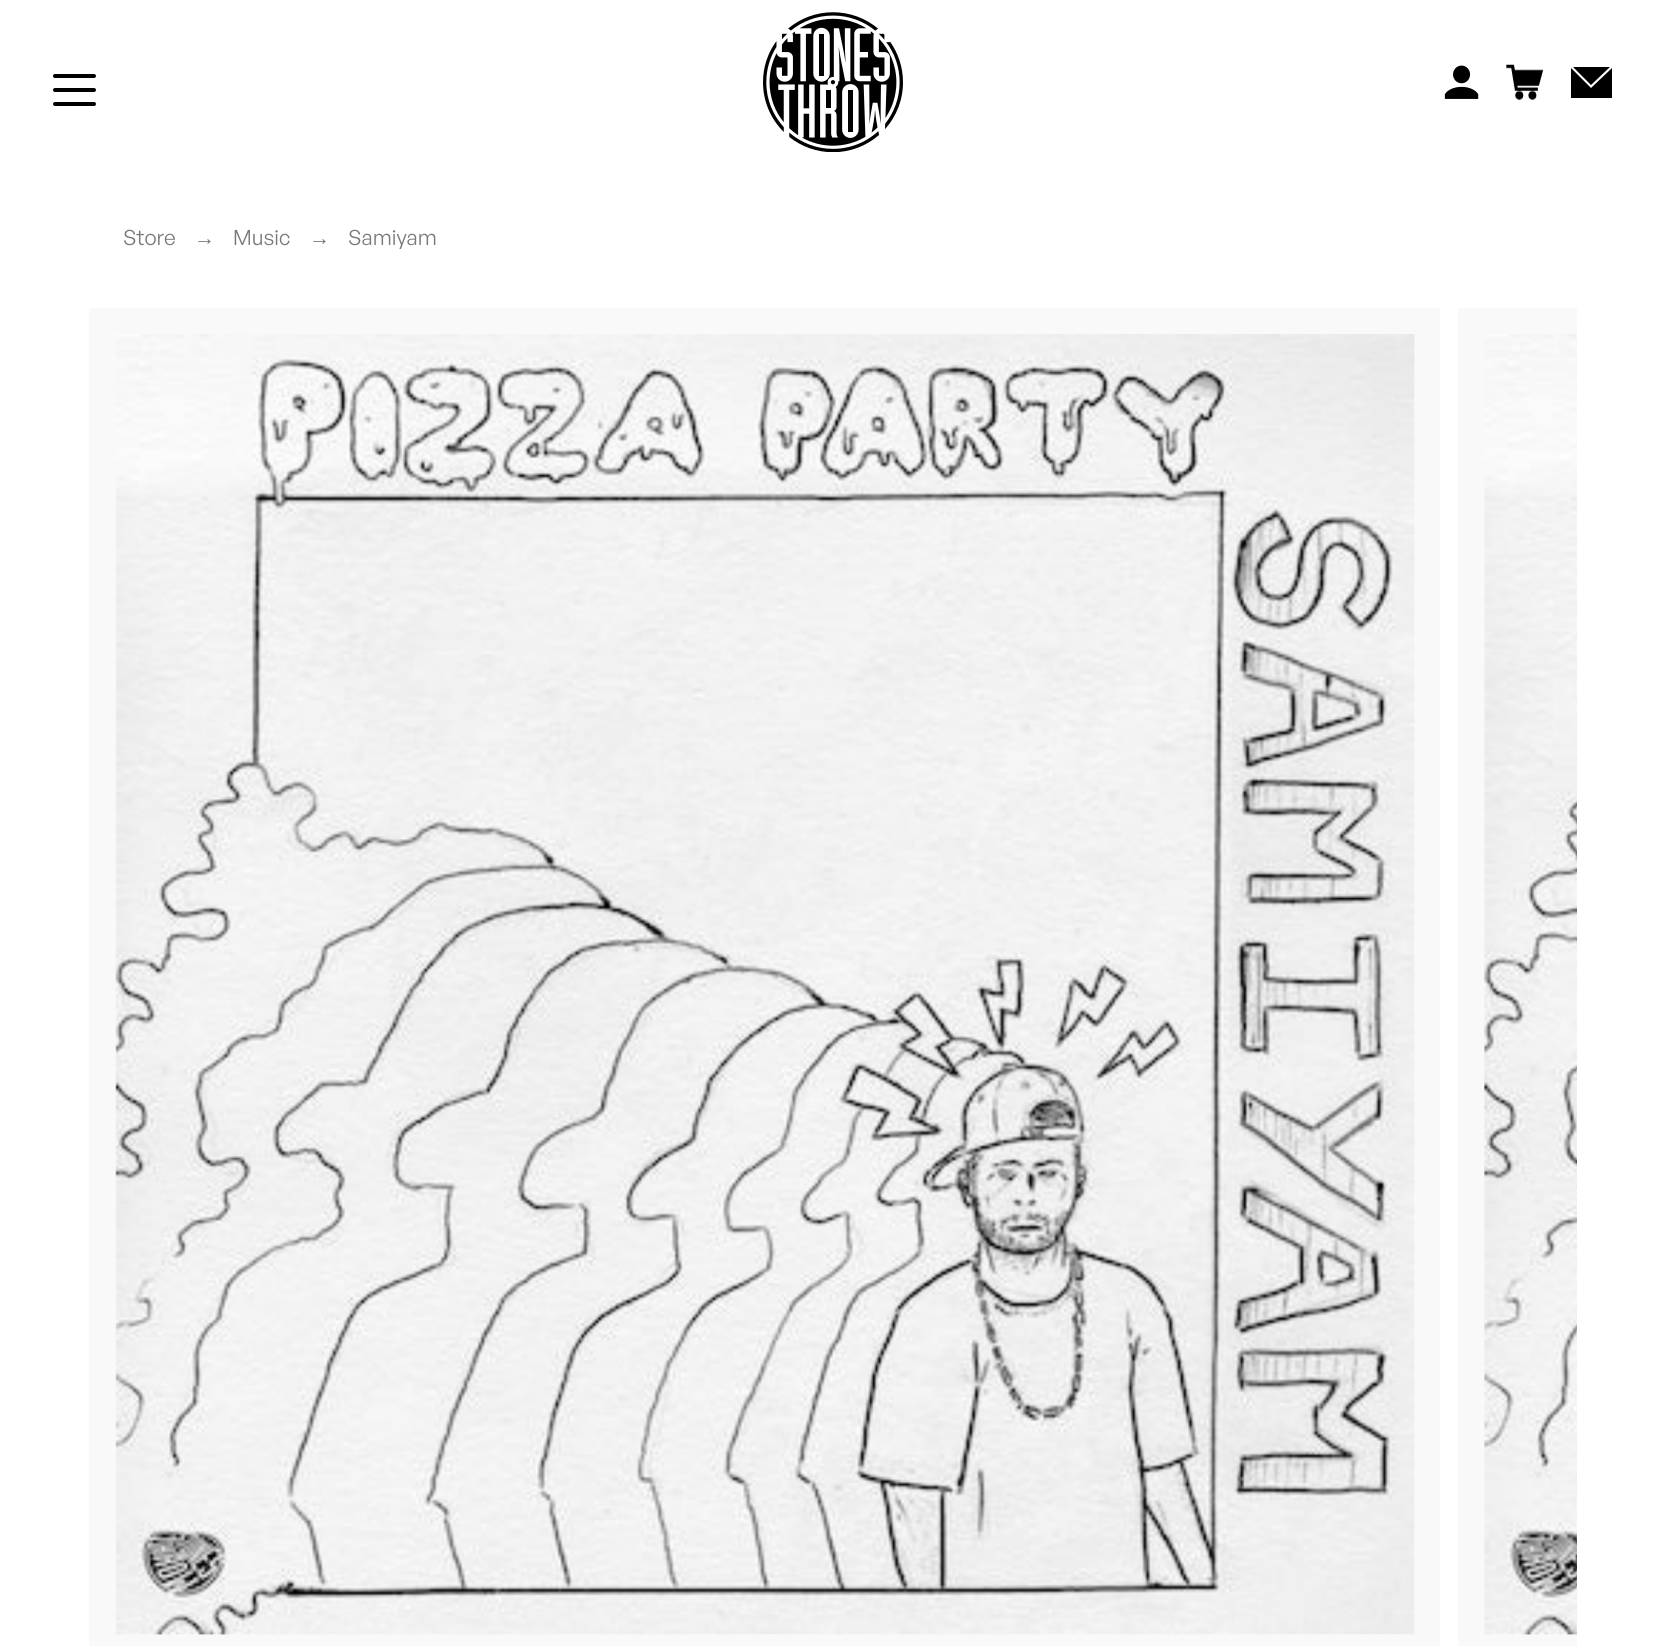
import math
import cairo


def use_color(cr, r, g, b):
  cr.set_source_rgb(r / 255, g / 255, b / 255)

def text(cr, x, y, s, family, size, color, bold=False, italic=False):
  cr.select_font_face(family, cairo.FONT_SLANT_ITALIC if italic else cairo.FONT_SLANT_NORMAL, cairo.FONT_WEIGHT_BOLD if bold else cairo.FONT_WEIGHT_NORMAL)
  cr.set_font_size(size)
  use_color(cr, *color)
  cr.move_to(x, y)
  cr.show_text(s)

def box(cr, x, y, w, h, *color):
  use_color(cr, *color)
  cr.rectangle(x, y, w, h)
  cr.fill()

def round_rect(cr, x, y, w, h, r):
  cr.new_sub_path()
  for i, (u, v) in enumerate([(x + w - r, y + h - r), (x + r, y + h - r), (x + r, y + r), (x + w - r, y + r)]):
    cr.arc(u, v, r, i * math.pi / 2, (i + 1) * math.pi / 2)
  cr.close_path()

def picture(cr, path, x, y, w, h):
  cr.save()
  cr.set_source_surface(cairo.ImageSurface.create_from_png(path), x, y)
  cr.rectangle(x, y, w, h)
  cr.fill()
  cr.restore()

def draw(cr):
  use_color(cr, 255, 255, 255)
  cr.paint()
  use_color(cr, 0, 0, 0)
  round_rect(cr, 53, 74, 43, 4, 2)
  cr.fill()
  round_rect(cr, 53, 88, 43, 4, 2)
  cr.fill()
  round_rect(cr, 53, 102, 43, 4, 2)
  cr.fill()
  picture(cr, "img_01.png", 763, 12, 140, 140)
  picture(cr, "img_02.png", 1444, 65, 35, 34)
  picture(cr, "img_03.png", 1506, 64, 37, 36)
  cr.save()
  cr.rectangle(1570, 67, 42, 33)
  cr.clip()
  cr.set_fill_rule(cairo.FILL_RULE_EVEN_ODD)
  cr.new_path()
  cr.move_to(1571, 68)
  cr.line_to(1571, 98)
  cr.line_to(1612, 98)
  cr.line_to(1612, 68)
  cr.line_to(1591, 88)
  cr.close_path()
  cr.move_to(1611, 66)
  cr.line_to(1572, 66)
  cr.line_to(1591, 85)
  cr.close_path()
  cr.fill()
  cr.restore()
  box(cr, 89, 308, 1351, 1338, 249, 249, 249)
  picture(cr, "img_04.png", 115, 334, 1300, 1301)
  box(cr, 1458, 308, 119, 1338, 249, 249, 249)
  picture(cr, "img_05.png", 1484, 334, 93, 1301)
  text(cr, 123, 245, "Store", "General Sans", 21, (121, 121, 121))
  text(cr, 194, 245, "→", "Liberation Sans", 21, (121, 121, 121))
  text(cr, 233, 245, "Music", "General Sans", 21, (121, 121, 121))
  text(cr, 309, 245, "→", "Liberation Sans", 21, (121, 121, 121))
  text(cr, 348, 245, "Samiyam", "General Sans", 21, (121, 121, 121))


surface = cairo.ImageSurface(cairo.FORMAT_RGB24, 1663, 1646)
cr = cairo.Context(surface)
options = cairo.FontOptions()
options.set_hint_metrics(cairo.HINT_METRICS_OFF)
options.set_hint_style(cairo.HINT_STYLE_NONE)
cr.set_font_options(options)
cr.set_miter_limit(4)
draw(cr)
surface.write_to_png("out.png")
